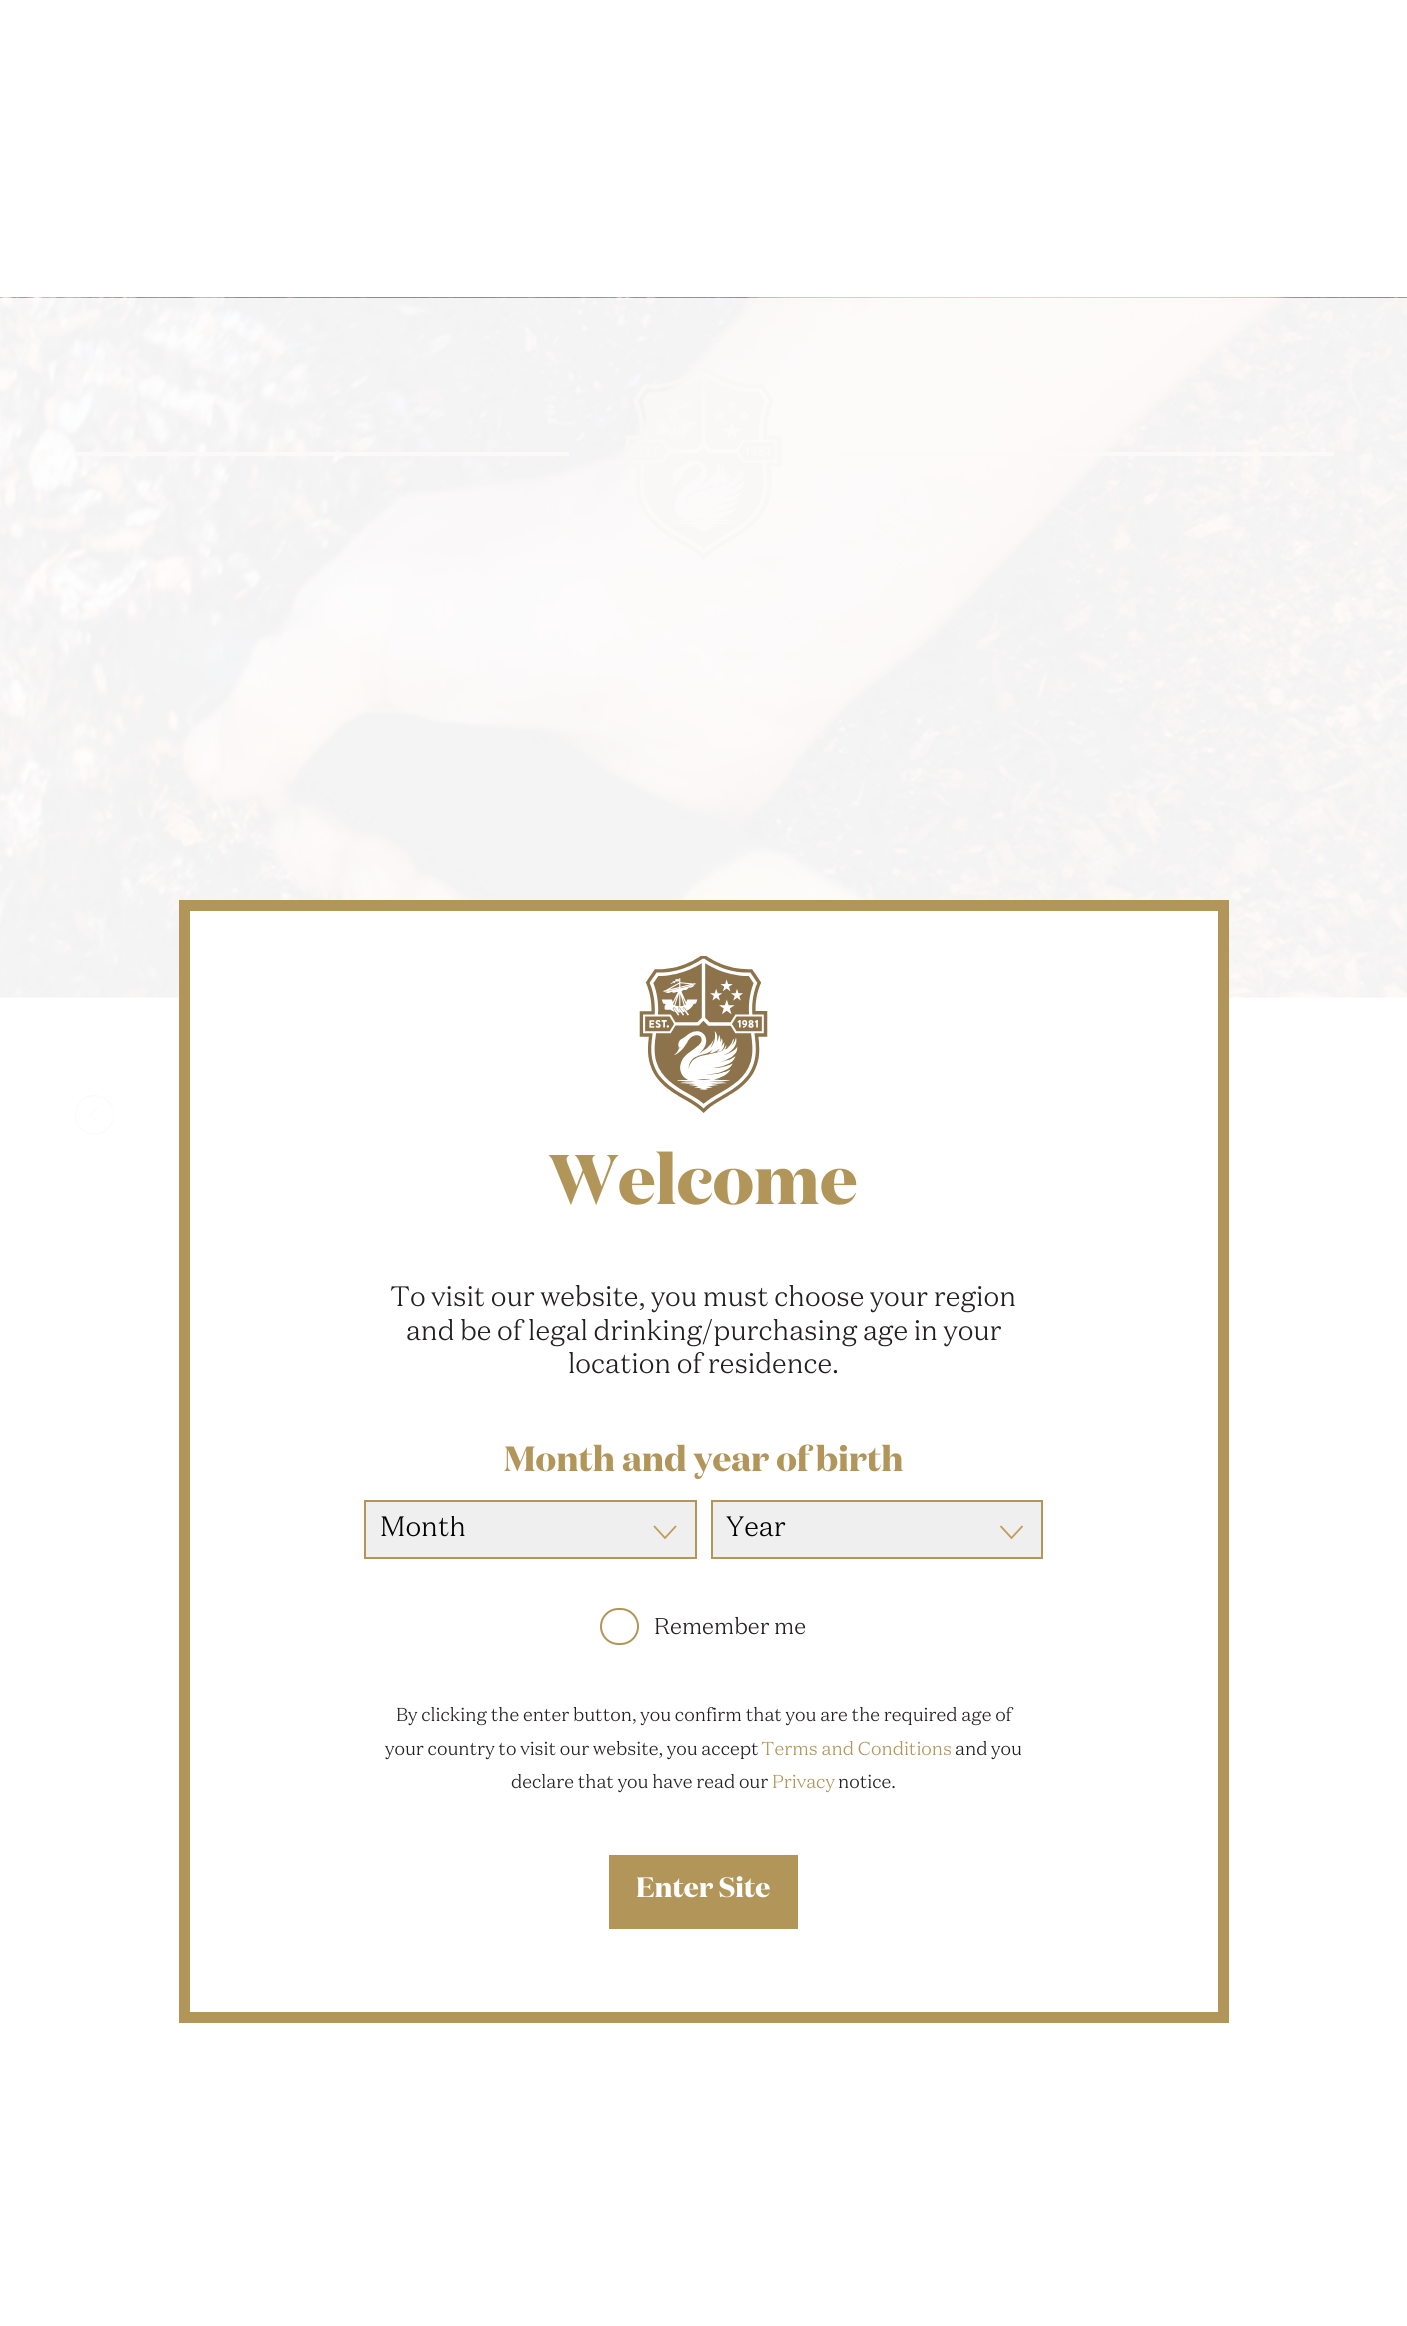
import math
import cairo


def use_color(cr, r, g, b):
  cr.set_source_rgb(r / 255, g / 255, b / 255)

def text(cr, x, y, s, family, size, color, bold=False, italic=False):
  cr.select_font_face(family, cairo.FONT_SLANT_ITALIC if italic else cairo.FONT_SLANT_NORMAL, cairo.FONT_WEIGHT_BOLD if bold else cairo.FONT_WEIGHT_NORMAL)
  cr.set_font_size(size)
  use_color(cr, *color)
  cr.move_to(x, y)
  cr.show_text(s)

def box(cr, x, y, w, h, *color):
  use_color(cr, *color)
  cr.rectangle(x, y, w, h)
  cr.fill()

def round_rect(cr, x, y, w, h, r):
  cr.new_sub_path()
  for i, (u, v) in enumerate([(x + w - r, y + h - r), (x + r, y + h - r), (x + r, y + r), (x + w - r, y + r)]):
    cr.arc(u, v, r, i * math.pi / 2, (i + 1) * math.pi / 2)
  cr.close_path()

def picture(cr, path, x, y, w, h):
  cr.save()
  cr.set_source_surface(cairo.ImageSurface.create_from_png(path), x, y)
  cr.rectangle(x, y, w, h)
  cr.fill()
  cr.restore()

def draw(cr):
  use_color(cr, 255, 255, 255)
  cr.paint()
  picture(cr, "img_01.png", 0, 297, 1407, 701)
  box(cr, 74, 452, 495, 4, 251, 250, 247)
  picture(cr, "img_02.png", 625, 368, 157, 192)
  box(cr, 840, 452, 494, 4, 251, 250, 247)
  picture(cr, "img_03.png", 74, 1094, 40, 41)
  box(cr, 190, 911, 1028, 87, 255, 255, 255)
  cr.rectangle(184.5, 905.5, 1039, 1112)
  use_color(cr, 177, 149, 89)
  cr.set_line_width(11)
  cr.stroke()
  picture(cr, "img_04.png", 639, 956, 129, 157)
  box(cr, 366, 1502, 329, 55, 239, 239, 239)
  cr.new_path()
  cr.move_to(654, 1526)
  cr.line_to(665, 1538)
  cr.line_to(676, 1526)
  use_color(cr, 192, 156, 88)
  cr.set_line_width(1.8)
  cr.stroke()
  cr.rectangle(365, 1501, 331, 57)
  use_color(cr, 177, 149, 89)
  cr.set_line_width(2)
  cr.stroke()
  box(cr, 713, 1502, 328, 55, 239, 239, 239)
  cr.new_path()
  cr.move_to(1000.5, 1526)
  cr.line_to(1011.5, 1538)
  cr.line_to(1022.5, 1526)
  use_color(cr, 192, 156, 88)
  cr.set_line_width(1.8)
  cr.stroke()
  cr.rectangle(712, 1501, 330, 57)
  use_color(cr, 177, 149, 89)
  cr.set_line_width(2)
  cr.stroke()
  round_rect(cr, 601, 1609, 37, 35, 17.5)
  cr.stroke()
  box(cr, 609, 1855, 189, 74, 177, 149, 89)
  text(cr, 549, 1204, "Welcome", "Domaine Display", 70, (177, 149, 89), bold=True)
  text(cr, 390, 1306, "To visit our website, you must choose your region", "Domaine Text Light", 28, (35, 31, 32))
  text(cr, 406, 1340, "and be of legal drinking/purchasing age in your", "Domaine Text Light", 28, (35, 31, 32))
  text(cr, 568, 1373, "location of residence.", "Domaine Text Light", 28, (35, 31, 32))
  text(cr, 504, 1471, "Month and year of birth", "Domaine Display", 35, (177, 149, 89), bold=True)
  cr.save()
  cr.rectangle(371, 1516, 310, 28)
  cr.clip()
  text(cr, 380, 1536, "Month", "Domaine Text Light", 28, (0, 0, 0))
  cr.restore()
  text(cr, 726, 1536, "Year", "Domaine Text Light", 28, (0, 0, 0))
  text(cr, 654, 1634, "Remember me", "Domaine Text Light", 22.75, (35, 31, 32))
  text(cr, 396, 1721, "By clicking the enter button, you confirm that you are the required age of", "Domaine Text Light", 18.7, (35, 31, 32))
  text(cr, 385, 1755, "your country to visit our website, you accept", "Domaine Text Light", 18.7, (35, 31, 32))
  text(cr, 761, 1755, "Terms and Conditions", "Domaine Text Light", 18.7, (177, 149, 89))
  text(cr, 955, 1755, "and you", "Domaine Text Light", 18.7, (35, 31, 32))
  text(cr, 511, 1788, "declare that you have read our", "Domaine Text Light", 18.7, (35, 31, 32))
  text(cr, 772, 1788, "Privacy", "Domaine Text Light", 18.7, (177, 149, 89))
  text(cr, 838, 1788, "notice.", "Domaine Text Light", 18.7, (35, 31, 32))
  text(cr, 636, 1897, "Enter Site", "Domaine Display", 28, (255, 255, 255), bold=True)


surface = cairo.ImageSurface(cairo.FORMAT_RGB24, 1407, 2326)
cr = cairo.Context(surface)
options = cairo.FontOptions()
options.set_hint_metrics(cairo.HINT_METRICS_OFF)
options.set_hint_style(cairo.HINT_STYLE_NONE)
cr.set_font_options(options)
cr.set_miter_limit(4)
draw(cr)
surface.write_to_png("out.png")
